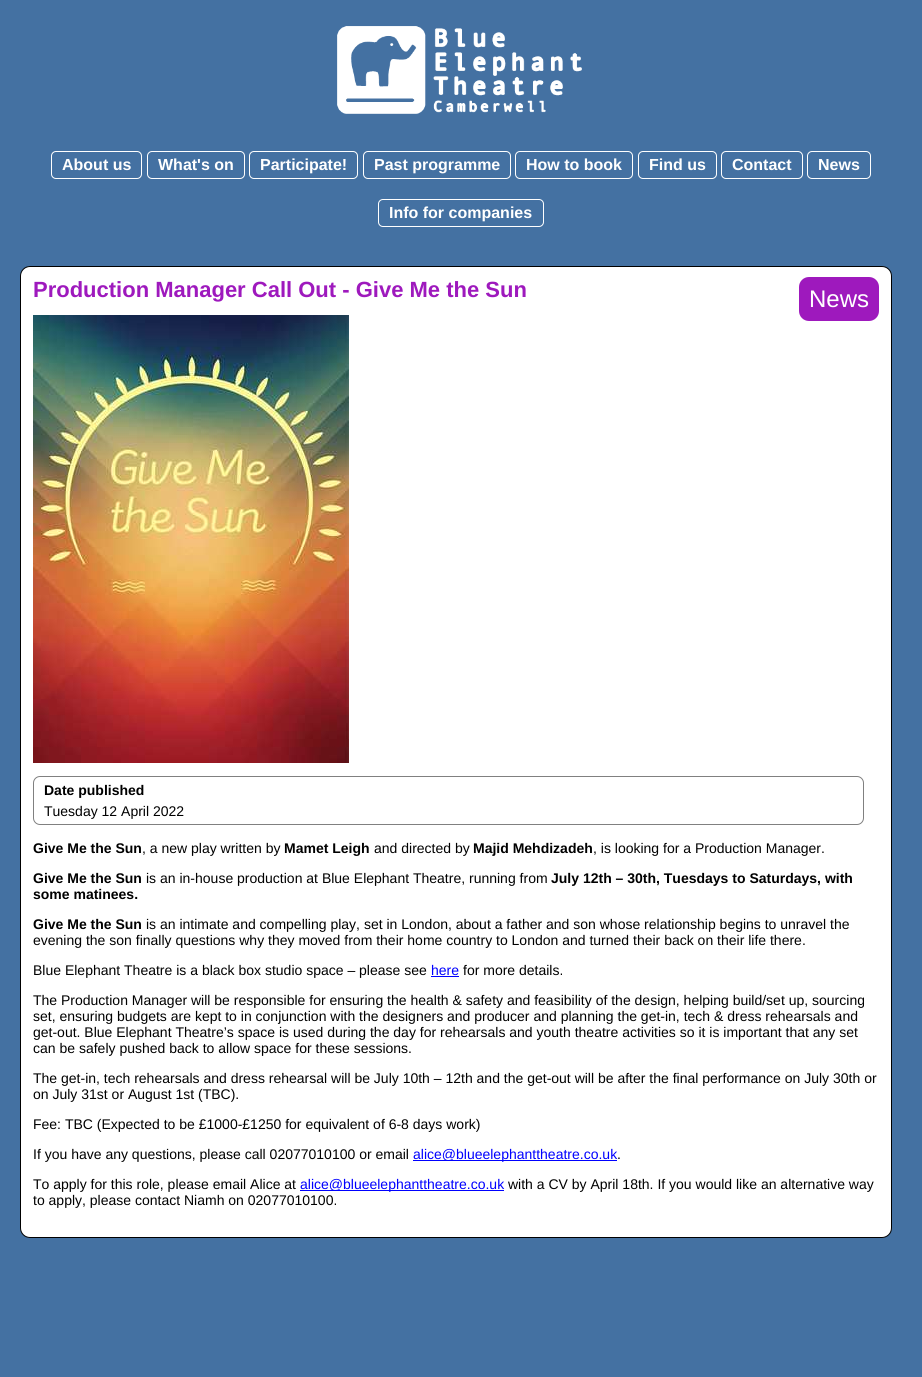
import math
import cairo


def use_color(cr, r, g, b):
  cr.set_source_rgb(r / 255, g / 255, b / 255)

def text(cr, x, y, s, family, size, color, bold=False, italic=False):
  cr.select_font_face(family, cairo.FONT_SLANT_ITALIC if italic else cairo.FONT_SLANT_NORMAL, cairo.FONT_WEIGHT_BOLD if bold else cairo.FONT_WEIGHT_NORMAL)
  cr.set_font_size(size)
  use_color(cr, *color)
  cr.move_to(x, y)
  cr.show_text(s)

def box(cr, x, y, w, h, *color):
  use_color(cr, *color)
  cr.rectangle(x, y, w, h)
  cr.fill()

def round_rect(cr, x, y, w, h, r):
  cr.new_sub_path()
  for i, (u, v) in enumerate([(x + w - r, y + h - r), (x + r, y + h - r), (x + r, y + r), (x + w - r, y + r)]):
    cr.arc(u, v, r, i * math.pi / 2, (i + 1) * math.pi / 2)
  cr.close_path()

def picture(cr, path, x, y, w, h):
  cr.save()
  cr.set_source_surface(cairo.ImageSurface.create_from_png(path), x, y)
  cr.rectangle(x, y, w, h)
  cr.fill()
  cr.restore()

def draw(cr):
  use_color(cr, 68, 113, 162)
  cr.paint()
  picture(cr, "img_01.png", 337, 26, 245, 88)
  round_rect(cr, 51.5, 151.5, 90, 27, 4.5)
  use_color(cr, 255, 255, 255)
  cr.set_line_width(1)
  cr.stroke()
  round_rect(cr, 147.5, 151.5, 97, 27, 4.5)
  cr.stroke()
  round_rect(cr, 249.5, 151.5, 108, 27, 4.5)
  cr.stroke()
  round_rect(cr, 363.5, 151.5, 147, 27, 4.5)
  cr.stroke()
  round_rect(cr, 515.5, 151.5, 117, 27, 4.5)
  cr.stroke()
  round_rect(cr, 638.5, 151.5, 78, 27, 4.5)
  cr.stroke()
  round_rect(cr, 721.5, 151.5, 81, 27, 4.5)
  cr.stroke()
  round_rect(cr, 807.5, 151.5, 63, 27, 4.5)
  cr.stroke()
  round_rect(cr, 378.5, 199.5, 165, 27, 4.5)
  cr.stroke()
  round_rect(cr, 20.5, 266.5, 871, 971, 9.5)
  cr.fill_preserve()
  use_color(cr, 0, 0, 0)
  cr.stroke()
  box(cr, 799, 277, 80, 44, 158, 25, 189)
  picture(cr, "img_02.png", 869, 277, 10, 10)
  picture(cr, "img_03.png", 799, 277, 10, 10)
  picture(cr, "img_04.png", 869, 311, 10, 10)
  picture(cr, "img_05.png", 799, 311, 10, 10)
  picture(cr, "img_06.png", 33, 315, 316, 448)
  round_rect(cr, 33.5, 776.5, 830, 48, 6.5)
  use_color(cr, 128, 128, 128)
  cr.stroke()
  box(cr, 431, 976, 28, 1, 0, 0, 255)
  box(cr, 413, 1160, 204, 1, 0, 0, 255)
  box(cr, 300, 1190, 204, 1, 0, 0, 255)
  text(cr, 62, 170, "About us", "Liberation Sans", 16, (255, 255, 255), bold=True)
  text(cr, 158, 170, "What's on", "Liberation Sans", 16, (255, 255, 255), bold=True)
  text(cr, 260, 170, "Participate!", "Liberation Sans", 16, (255, 255, 255), bold=True)
  text(cr, 374, 170, "Past programme", "Liberation Sans", 16, (255, 255, 255), bold=True)
  text(cr, 526, 170, "How to book", "Liberation Sans", 16, (255, 255, 255), bold=True)
  text(cr, 649, 170, "Find us", "Liberation Sans", 16, (255, 255, 255), bold=True)
  text(cr, 732, 170, "Contact", "Liberation Sans", 16, (255, 255, 255), bold=True)
  text(cr, 818, 170, "News", "Liberation Sans", 16, (255, 255, 255), bold=True)
  text(cr, 389, 218, "Info for companies", "Liberation Sans", 16, (255, 255, 255), bold=True)
  text(cr, 33, 297, "Production Manager Call Out - Give Me the Sun", "Liberation Sans", 22, (158, 25, 189), bold=True)
  text(cr, 809, 307, "News", "Liberation Sans", 24, (255, 255, 255))
  text(cr, 44, 795, "Date published", "Liberation Sans", 14, (0, 0, 0), bold=True)
  text(cr, 44, 816, "Tuesday 12 April 2022", "Liberation Sans", 14, (0, 0, 0))
  text(cr, 33, 853, "Give Me the Sun", "Liberation Sans", 14, (0, 0, 0), bold=True)
  text(cr, 142, 853, ", a new play written by", "Liberation Sans", 14, (0, 0, 0))
  text(cr, 284, 853, "Mamet Leigh", "Liberation Sans", 14, (0, 0, 0), bold=True)
  text(cr, 374, 853, "and directed by", "Liberation Sans", 14, (0, 0, 0))
  text(cr, 473, 853, "Majid Mehdizadeh", "Liberation Sans", 14, (0, 0, 0), bold=True)
  text(cr, 593, 853, ", is looking for a Production Manager.", "Liberation Sans", 14, (0, 0, 0))
  text(cr, 33, 883, "Give Me the Sun", "Liberation Sans", 14, (0, 0, 0), bold=True)
  text(cr, 146, 883, "is an in-house production at Blue Elephant Theatre, running from", "Liberation Sans", 14, (0, 0, 0))
  text(cr, 551, 883, "July 12th – 30th, Tuesdays to Saturdays, with", "Liberation Sans", 14, (0, 0, 0), bold=True)
  text(cr, 33, 899, "some matinees.", "Liberation Sans", 14, (0, 0, 0), bold=True)
  text(cr, 33, 929, "Give Me the Sun", "Liberation Sans", 14, (0, 0, 0), bold=True)
  text(cr, 146, 929, "is an intimate and compelling play, set in London, about a father and son whose relationship begins to unravel the", "Liberation Sans", 14, (0, 0, 0))
  text(cr, 33, 945, "evening the son finally questions why they moved from their home country to London and turned their back on their life there.", "Liberation Sans", 14, (0, 0, 0))
  text(cr, 33, 975, "Blue Elephant Theatre is a black box studio space – please see", "Liberation Sans", 14, (0, 0, 0))
  text(cr, 431, 975, "here", "Liberation Sans", 14, (0, 0, 255))
  text(cr, 463, 975, "for more details.", "Liberation Sans", 14, (0, 0, 0))
  text(cr, 33, 1005, "The Production Manager will be responsible for ensuring the health & safety and feasibility of the design, helping build/set up, sourcing", "Liberation Sans", 14, (0, 0, 0))
  text(cr, 33, 1021, "set, ensuring budgets are kept to in conjunction with the designers and producer and planning the get-in, tech & dress rehearsals and", "Liberation Sans", 14, (0, 0, 0))
  text(cr, 33, 1037, "get-out. Blue Elephant Theatre’s space is used during the day for rehearsals and youth theatre activities so it is important that any set", "Liberation Sans", 14, (0, 0, 0))
  text(cr, 33, 1053, "can be safely pushed back to allow space for these sessions.", "Liberation Sans", 14, (0, 0, 0))
  text(cr, 33, 1083, "The get-in, tech rehearsals and dress rehearsal will be July 10th – 12th and the get-out will be after the final performance on July 30th or", "Liberation Sans", 14, (0, 0, 0))
  text(cr, 33, 1099, "on July 31st or August 1st (TBC).", "Liberation Sans", 14, (0, 0, 0))
  text(cr, 33, 1129, "Fee: TBC (Expected to be £1000-£1250 for equivalent of 6-8 days work)", "Liberation Sans", 14, (0, 0, 0))
  text(cr, 33, 1159, "If you have any questions, please call 02077010100 or email", "Liberation Sans", 14, (0, 0, 0))
  text(cr, 413, 1159, "alice@blueelephanttheatre.co.uk", "Liberation Sans", 14, (0, 0, 255))
  text(cr, 617, 1159, ".", "Liberation Sans", 14, (0, 0, 0))
  text(cr, 33, 1189, "To apply for this role, please email Alice at", "Liberation Sans", 14, (0, 0, 0))
  text(cr, 300, 1189, "alice@blueelephanttheatre.co.uk", "Liberation Sans", 14, (0, 0, 255))
  text(cr, 508, 1189, "with a CV by April 18th. If you would like an alternative way", "Liberation Sans", 14, (0, 0, 0))
  text(cr, 33, 1205, "to apply, please contact Niamh on 02077010100.", "Liberation Sans", 14, (0, 0, 0))


surface = cairo.ImageSurface(cairo.FORMAT_RGB24, 922, 1377)
cr = cairo.Context(surface)
options = cairo.FontOptions()
options.set_hint_metrics(cairo.HINT_METRICS_OFF)
options.set_hint_style(cairo.HINT_STYLE_NONE)
cr.set_font_options(options)
cr.set_miter_limit(4)
draw(cr)
surface.write_to_png("out.png")
